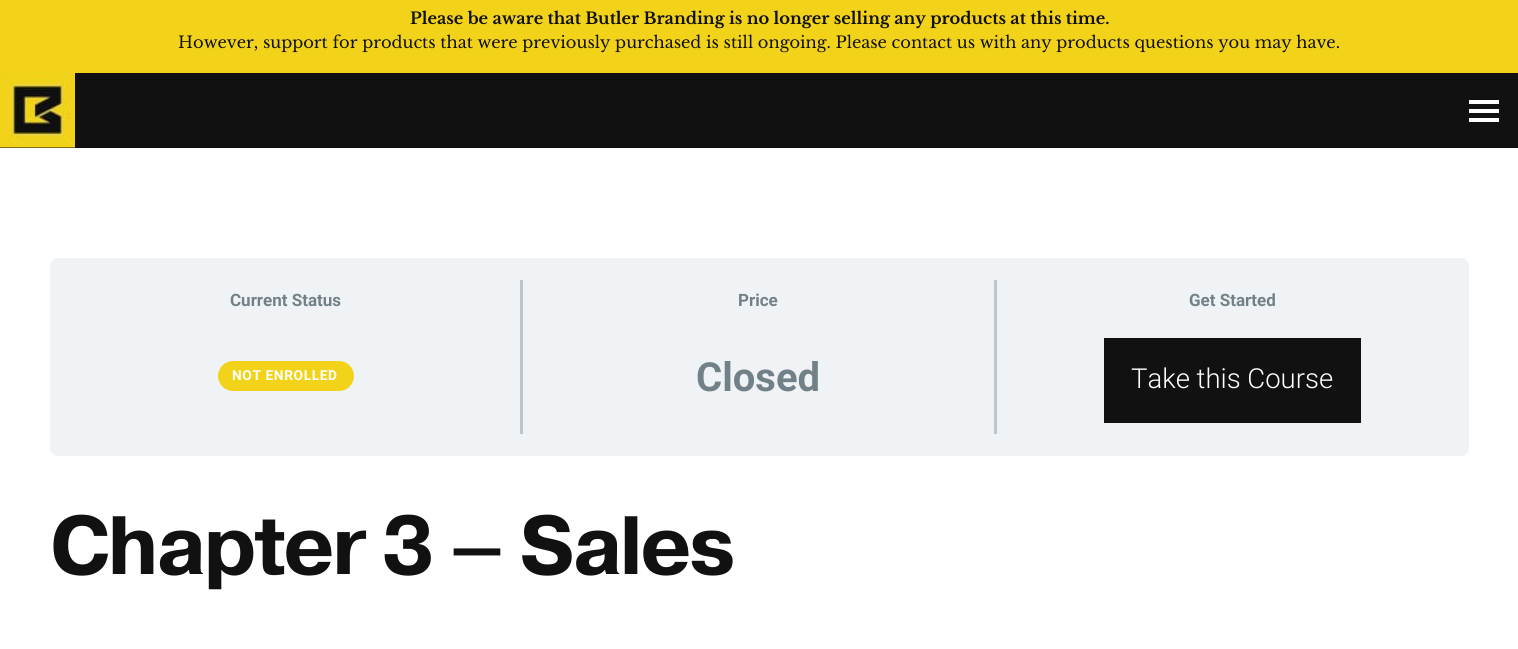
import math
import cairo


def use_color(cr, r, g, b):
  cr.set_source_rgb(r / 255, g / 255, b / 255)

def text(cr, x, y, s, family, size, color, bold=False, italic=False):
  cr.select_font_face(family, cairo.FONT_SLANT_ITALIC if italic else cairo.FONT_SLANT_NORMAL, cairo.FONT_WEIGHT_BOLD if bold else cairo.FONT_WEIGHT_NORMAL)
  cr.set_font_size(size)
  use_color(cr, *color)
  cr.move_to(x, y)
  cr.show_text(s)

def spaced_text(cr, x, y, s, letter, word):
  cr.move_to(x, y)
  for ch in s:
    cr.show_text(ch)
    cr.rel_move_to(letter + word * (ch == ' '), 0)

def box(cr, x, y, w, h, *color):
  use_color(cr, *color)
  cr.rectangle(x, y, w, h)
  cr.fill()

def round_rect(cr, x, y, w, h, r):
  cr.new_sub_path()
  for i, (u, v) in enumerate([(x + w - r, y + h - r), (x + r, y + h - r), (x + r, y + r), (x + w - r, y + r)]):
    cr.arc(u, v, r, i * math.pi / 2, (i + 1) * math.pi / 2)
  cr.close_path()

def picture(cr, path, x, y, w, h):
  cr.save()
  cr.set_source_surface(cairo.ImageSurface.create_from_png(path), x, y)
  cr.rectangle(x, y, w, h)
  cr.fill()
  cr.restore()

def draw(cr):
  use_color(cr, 255, 255, 255)
  cr.paint()
  box(cr, 0, 73, 1518, 75, 17, 17, 17)
  box(cr, 0, 0, 1518, 73, 242, 211, 25)
  picture(cr, "img_01.png", 0, 72, 75, 76)
  box(cr, 1469, 100, 30, 4, 255, 255, 255)
  box(cr, 1469, 109, 30, 4, 255, 255, 255)
  box(cr, 1469, 118, 30, 4, 255, 255, 255)
  use_color(cr, 240, 243, 246)
  round_rect(cr, 50, 258, 1419, 198, 8)
  cr.fill()
  box(cr, 520, 280, 3, 154, 190, 197, 203)
  use_color(cr, 242, 211, 25)
  round_rect(cr, 218, 361, 136, 30, 15)
  cr.fill()
  box(cr, 994, 280, 3, 154, 190, 197, 203)
  box(cr, 1104, 338, 257, 85, 17, 17, 17)
  text(cr, 410, 24, "Please be aware that Butler Branding is no longer selling any products at this time.", "Libre Baskerville", 16.25, (17, 17, 17), bold=True)
  text(cr, 178, 48, "However, support for products that were previously purchased is still ongoing. Please contact us with any products questions you may have.", "Libre Baskerville", 16.25, (17, 17, 17))
  text(cr, 230, 306, "Current Status", "Roboto", 17, (114, 129, 136), bold=True)
  cr.set_font_size(13.75)
  use_color(cr, 255, 255, 255)
  spaced_text(cr, 232, 380, "NOT ENROLLED", 0.6, 0)
  text(cr, 738, 306, "Price", "Roboto", 17, (114, 129, 136), bold=True)
  text(cr, 696, 391, "Closed", "Roboto", 40, (114, 129, 136), bold=True)
  text(cr, 1189, 306, "Get Started", "Roboto", 17, (114, 129, 136), bold=True)
  text(cr, 1131, 388, "Take this Course", "Roboto Light", 27.5, (255, 255, 255))
  cr.select_font_face("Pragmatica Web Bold", cairo.FONT_SLANT_NORMAL, cairo.FONT_WEIGHT_BOLD)
  cr.set_font_size(82.5)
  use_color(cr, 17, 17, 17)
  spaced_text(cr, 50, 574, "Chapter 3 – Sales", -2.5, 0)


surface = cairo.ImageSurface(cairo.FORMAT_RGB24, 1518, 649)
cr = cairo.Context(surface)
options = cairo.FontOptions()
options.set_hint_metrics(cairo.HINT_METRICS_OFF)
options.set_hint_style(cairo.HINT_STYLE_NONE)
cr.set_font_options(options)
cr.set_miter_limit(4)
draw(cr)
surface.write_to_png("out.png")
